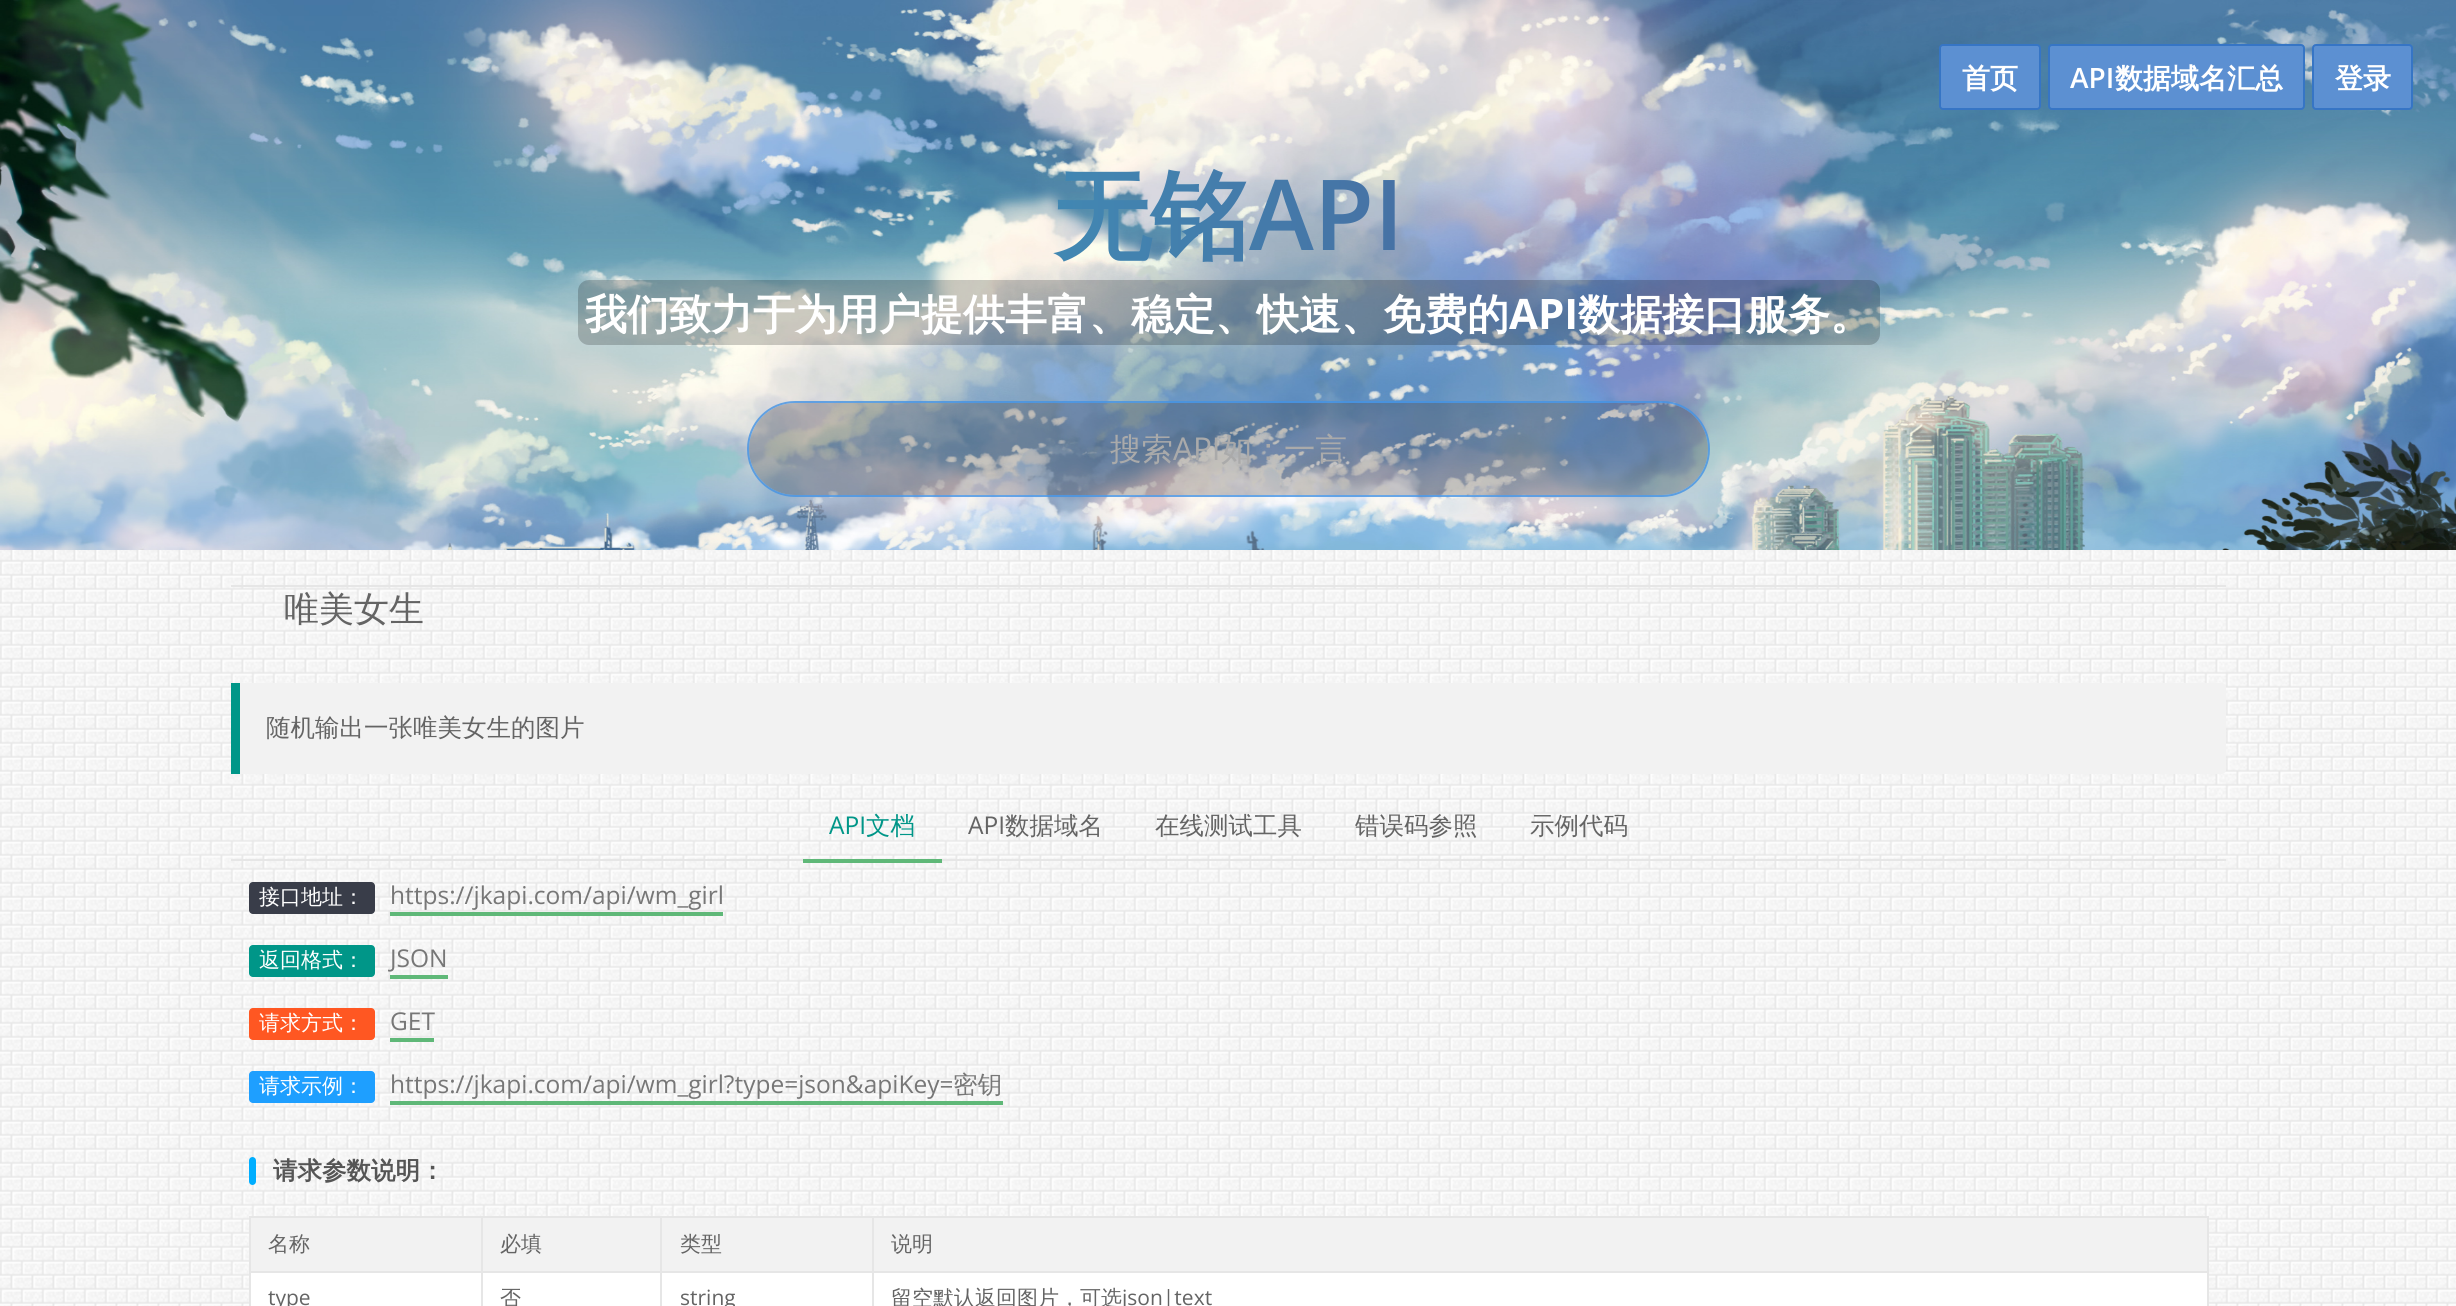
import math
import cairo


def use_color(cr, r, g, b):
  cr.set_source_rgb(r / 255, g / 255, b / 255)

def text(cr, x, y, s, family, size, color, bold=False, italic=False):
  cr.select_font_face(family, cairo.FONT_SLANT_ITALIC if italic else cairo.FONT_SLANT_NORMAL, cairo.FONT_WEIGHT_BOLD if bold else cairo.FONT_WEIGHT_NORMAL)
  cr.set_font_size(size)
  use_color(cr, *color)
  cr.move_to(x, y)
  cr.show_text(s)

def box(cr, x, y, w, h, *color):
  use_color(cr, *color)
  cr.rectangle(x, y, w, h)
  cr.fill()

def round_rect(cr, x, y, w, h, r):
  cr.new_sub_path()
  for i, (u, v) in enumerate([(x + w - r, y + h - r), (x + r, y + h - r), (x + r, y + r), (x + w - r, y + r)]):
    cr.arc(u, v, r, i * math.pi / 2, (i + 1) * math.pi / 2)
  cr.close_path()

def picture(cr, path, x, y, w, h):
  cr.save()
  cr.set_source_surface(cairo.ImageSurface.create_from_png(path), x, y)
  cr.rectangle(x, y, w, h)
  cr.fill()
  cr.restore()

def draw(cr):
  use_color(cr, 255, 255, 255)
  cr.paint()
  picture(cr, "img_01.png", 0, 550, 2456, 756)
  picture(cr, "img_02.png", 0, 0, 2456, 550)
  use_color(cr, 92, 144, 210)
  round_rect(cr, 1940, 45, 100, 64, 3)
  cr.fill_preserve()
  use_color(cr, 54, 117, 197)
  cr.stroke()
  use_color(cr, 92, 144, 210)
  round_rect(cr, 2049, 45, 255, 64, 3)
  cr.fill_preserve()
  use_color(cr, 54, 117, 197)
  cr.stroke()
  use_color(cr, 92, 144, 210)
  round_rect(cr, 2313, 45, 99, 64, 3)
  cr.fill_preserve()
  use_color(cr, 54, 117, 197)
  cr.stroke()
  cr.set_source_rgba(0, 0, 0, 0.2)
  round_rect(cr, 578, 280, 1302, 65, 11)
  cr.fill()
  cr.set_source_rgba(0.204, 0.173, 0.173, 0.25)
  round_rect(cr, 749, 403, 959, 92, 46)
  cr.fill()
  round_rect(cr, 748, 402, 961, 94, 47)
  cr.set_source_rgba(0.267, 0.573, 0.89, 0.8)
  cr.stroke()
  box(cr, 231, 585, 1995, 2, 230, 230, 230)
  use_color(cr, 242, 242, 242)
  cr.new_path()
  cr.move_to(231, 683)
  cr.line_to(2222, 683)
  cr.curve_to(2224, 683, 2226, 685, 2226, 687)
  cr.line_to(2226, 770)
  cr.curve_to(2226, 772, 2224, 774, 2222, 774)
  cr.line_to(231, 774)
  cr.close_path()
  cr.fill()
  box(cr, 231, 683, 9, 91, 0, 150, 136)
  box(cr, 231, 859, 1995, 2, 230, 230, 230)
  box(cr, 803, 859, 139, 4, 95, 184, 120)
  use_color(cr, 57, 61, 73)
  round_rect(cr, 249, 882, 126, 32, 4)
  cr.fill()
  box(cr, 390, 912, 333, 4, 95, 184, 120)
  use_color(cr, 0, 150, 136)
  round_rect(cr, 249, 945, 126, 32, 4)
  cr.fill()
  box(cr, 390, 975, 58, 4, 95, 184, 120)
  use_color(cr, 255, 87, 34)
  round_rect(cr, 249, 1008, 126, 32, 4)
  cr.fill()
  box(cr, 390, 1038, 44, 4, 95, 184, 120)
  use_color(cr, 30, 159, 255)
  round_rect(cr, 249, 1071, 126, 32, 4)
  cr.fill()
  box(cr, 390, 1101, 613, 4, 95, 184, 120)
  use_color(cr, 0, 174, 255)
  round_rect(cr, 249, 1157, 7, 28, 3.5)
  cr.fill()
  box(cr, 251, 1273, 1956, 33, 255, 255, 255)
  box(cr, 251, 1218, 1956, 53, 242, 242, 242)
  box(cr, 872, 1216, 1337, 2, 230, 230, 230)
  box(cr, 872, 1271, 1337, 2, 230, 230, 230)
  box(cr, 872, 1271, 2, 35, 230, 230, 230)
  box(cr, 660, 1271, 213, 2, 230, 230, 230)
  box(cr, 872, 1216, 2, 56, 230, 230, 230)
  box(cr, 660, 1216, 213, 2, 230, 230, 230)
  box(cr, 660, 1271, 2, 35, 230, 230, 230)
  box(cr, 481, 1271, 181, 2, 230, 230, 230)
  box(cr, 660, 1216, 2, 56, 230, 230, 230)
  box(cr, 481, 1216, 181, 2, 230, 230, 230)
  box(cr, 481, 1271, 2, 35, 230, 230, 230)
  box(cr, 249, 1271, 234, 2, 230, 230, 230)
  box(cr, 481, 1216, 2, 56, 230, 230, 230)
  box(cr, 249, 1216, 234, 2, 230, 230, 230)
  box(cr, 249, 1271, 2, 35, 230, 230, 230)
  box(cr, 249, 1216, 2, 56, 230, 230, 230)
  box(cr, 2207, 1271, 2, 35, 230, 230, 230)
  box(cr, 2207, 1216, 2, 56, 230, 230, 230)
  text(cr, 1962, 88, "首页", "WenQuanYi Zen Hei", 28, (255, 255, 255), bold=True)
  text(cr, 2070, 88, "API", "Open Sans SemiBold", 28, (255, 255, 255))
  text(cr, 2115, 88, "数据域名汇总", "WenQuanYi Zen Hei", 28, (255, 255, 255), bold=True)
  text(cr, 2335, 88, "登录", "WenQuanYi Zen Hei", 28, (255, 255, 255), bold=True)
  cr.set_font_size(98)
  gradient = cairo.LinearGradient(18, 213, 2440, 213)
  gradient.add_color_stop_rgba(0, 0.227, 0.71, 0.69, 1)
  gradient.add_color_stop_rgba(0.31, 0.239, 0.6, 0.745, 1)
  gradient.add_color_stop_rgba(1, 0.337, 0.192, 0.478, 1)
  cr.set_source(gradient)
  cr.move_to(1053, 250)
  cr.show_text("无铭")
  cr.select_font_face("Open Sans SemiBold")
  cr.move_to(1249, 250)
  cr.show_text("API")
  text(cr, 585, 329, "我们致力于为用户提供丰富、稳定、快速、免费的", "WenQuanYi Zen Hei", 42, (255, 255, 255), bold=True)
  text(cr, 1509, 329, "API", "Open Sans", 42, (255, 255, 255), bold=True)
  text(cr, 1578, 329, "数据接口服务。", "WenQuanYi Zen Hei", 42, (255, 255, 255), bold=True)
  text(cr, 1110, 460, "搜索", "WenQuanYi Zen Hei Medium", 31.5, (170, 170, 170))
  text(cr, 1173, 460, "API", "Open Sans", 31.5, (170, 170, 170))
  text(cr, 1221, 460, "如：一言", "WenQuanYi Zen Hei Medium", 31.5, (170, 170, 170))
  text(cr, 284, 621, "唯美女生", "WenQuanYi Zen Hei Medium", 35, (100, 100, 100))
  text(cr, 266, 736, "随机输出一张唯美女生的图片", "WenQuanYi Zen Hei Medium", 24.5, (100, 100, 100))
  text(cr, 829, 834, "API", "Open Sans", 24.5, (0, 150, 136))
  text(cr, 866, 834, "文档", "WenQuanYi Zen Hei Medium", 24.5, (0, 150, 136))
  text(cr, 968, 834, "API", "Open Sans", 24.5, (100, 100, 100))
  text(cr, 1005, 834, "数据域名", "WenQuanYi Zen Hei Medium", 24.5, (100, 100, 100))
  text(cr, 1155, 834, "在线测试工具", "WenQuanYi Zen Hei Medium", 24.5, (100, 100, 100))
  text(cr, 1355, 834, "错误码参照", "WenQuanYi Zen Hei Medium", 24.5, (100, 100, 100))
  text(cr, 1530, 834, "示例代码", "WenQuanYi Zen Hei Medium", 24.5, (100, 100, 100))
  text(cr, 259, 904, "接口地址：", "WenQuanYi Zen Hei Medium", 21, (255, 255, 255))
  text(cr, 390, 904, "https://jkapi.com/api/wm_girl", "Open Sans", 24.5, (119, 119, 119))
  text(cr, 259, 967, "返回格式：", "WenQuanYi Zen Hei Medium", 21, (255, 255, 255))
  text(cr, 390, 967, "JSON", "Open Sans", 24.5, (119, 119, 119))
  text(cr, 259, 1030, "请求方式：", "WenQuanYi Zen Hei Medium", 21, (255, 255, 255))
  text(cr, 390, 1030, "GET", "Open Sans", 24.5, (119, 119, 119))
  text(cr, 259, 1093, "请求示例：", "WenQuanYi Zen Hei Medium", 21, (255, 255, 255))
  text(cr, 390, 1093, "https://jkapi.com/api/wm_girl?type=json&apiKey=", "Open Sans", 24.5, (119, 119, 119))
  text(cr, 953, 1093, "密钥", "WenQuanYi Zen Hei Medium", 24.5, (119, 119, 119))
  text(cr, 273, 1179, "请求参数说明：", "WenQuanYi Zen Hei", 24.5, (85, 85, 85), bold=True)
  text(cr, 268, 1251, "名称", "WenQuanYi Zen Hei Medium", 21, (100, 100, 100))
  text(cr, 500, 1251, "必填", "WenQuanYi Zen Hei Medium", 21, (100, 100, 100))
  text(cr, 680, 1251, "类型", "WenQuanYi Zen Hei Medium", 21, (100, 100, 100))
  text(cr, 891, 1251, "说明", "WenQuanYi Zen Hei Medium", 21, (100, 100, 100))
  text(cr, 268, 1305, "type", "Open Sans", 21, (100, 100, 100))
  text(cr, 500, 1305, "否", "WenQuanYi Zen Hei Medium", 21, (100, 100, 100))
  text(cr, 680, 1305, "string", "Open Sans", 21, (100, 100, 100))
  text(cr, 891, 1305, "留空默认返回图片，可选", "WenQuanYi Zen Hei Medium", 21, (100, 100, 100))
  text(cr, 1122, 1305, "json|text", "Open Sans", 21, (100, 100, 100))


surface = cairo.ImageSurface(cairo.FORMAT_RGB24, 2456, 1306)
cr = cairo.Context(surface)
options = cairo.FontOptions()
options.set_hint_metrics(cairo.HINT_METRICS_OFF)
options.set_hint_style(cairo.HINT_STYLE_NONE)
cr.set_font_options(options)
cr.set_miter_limit(4)
draw(cr)
surface.write_to_png("out.png")
